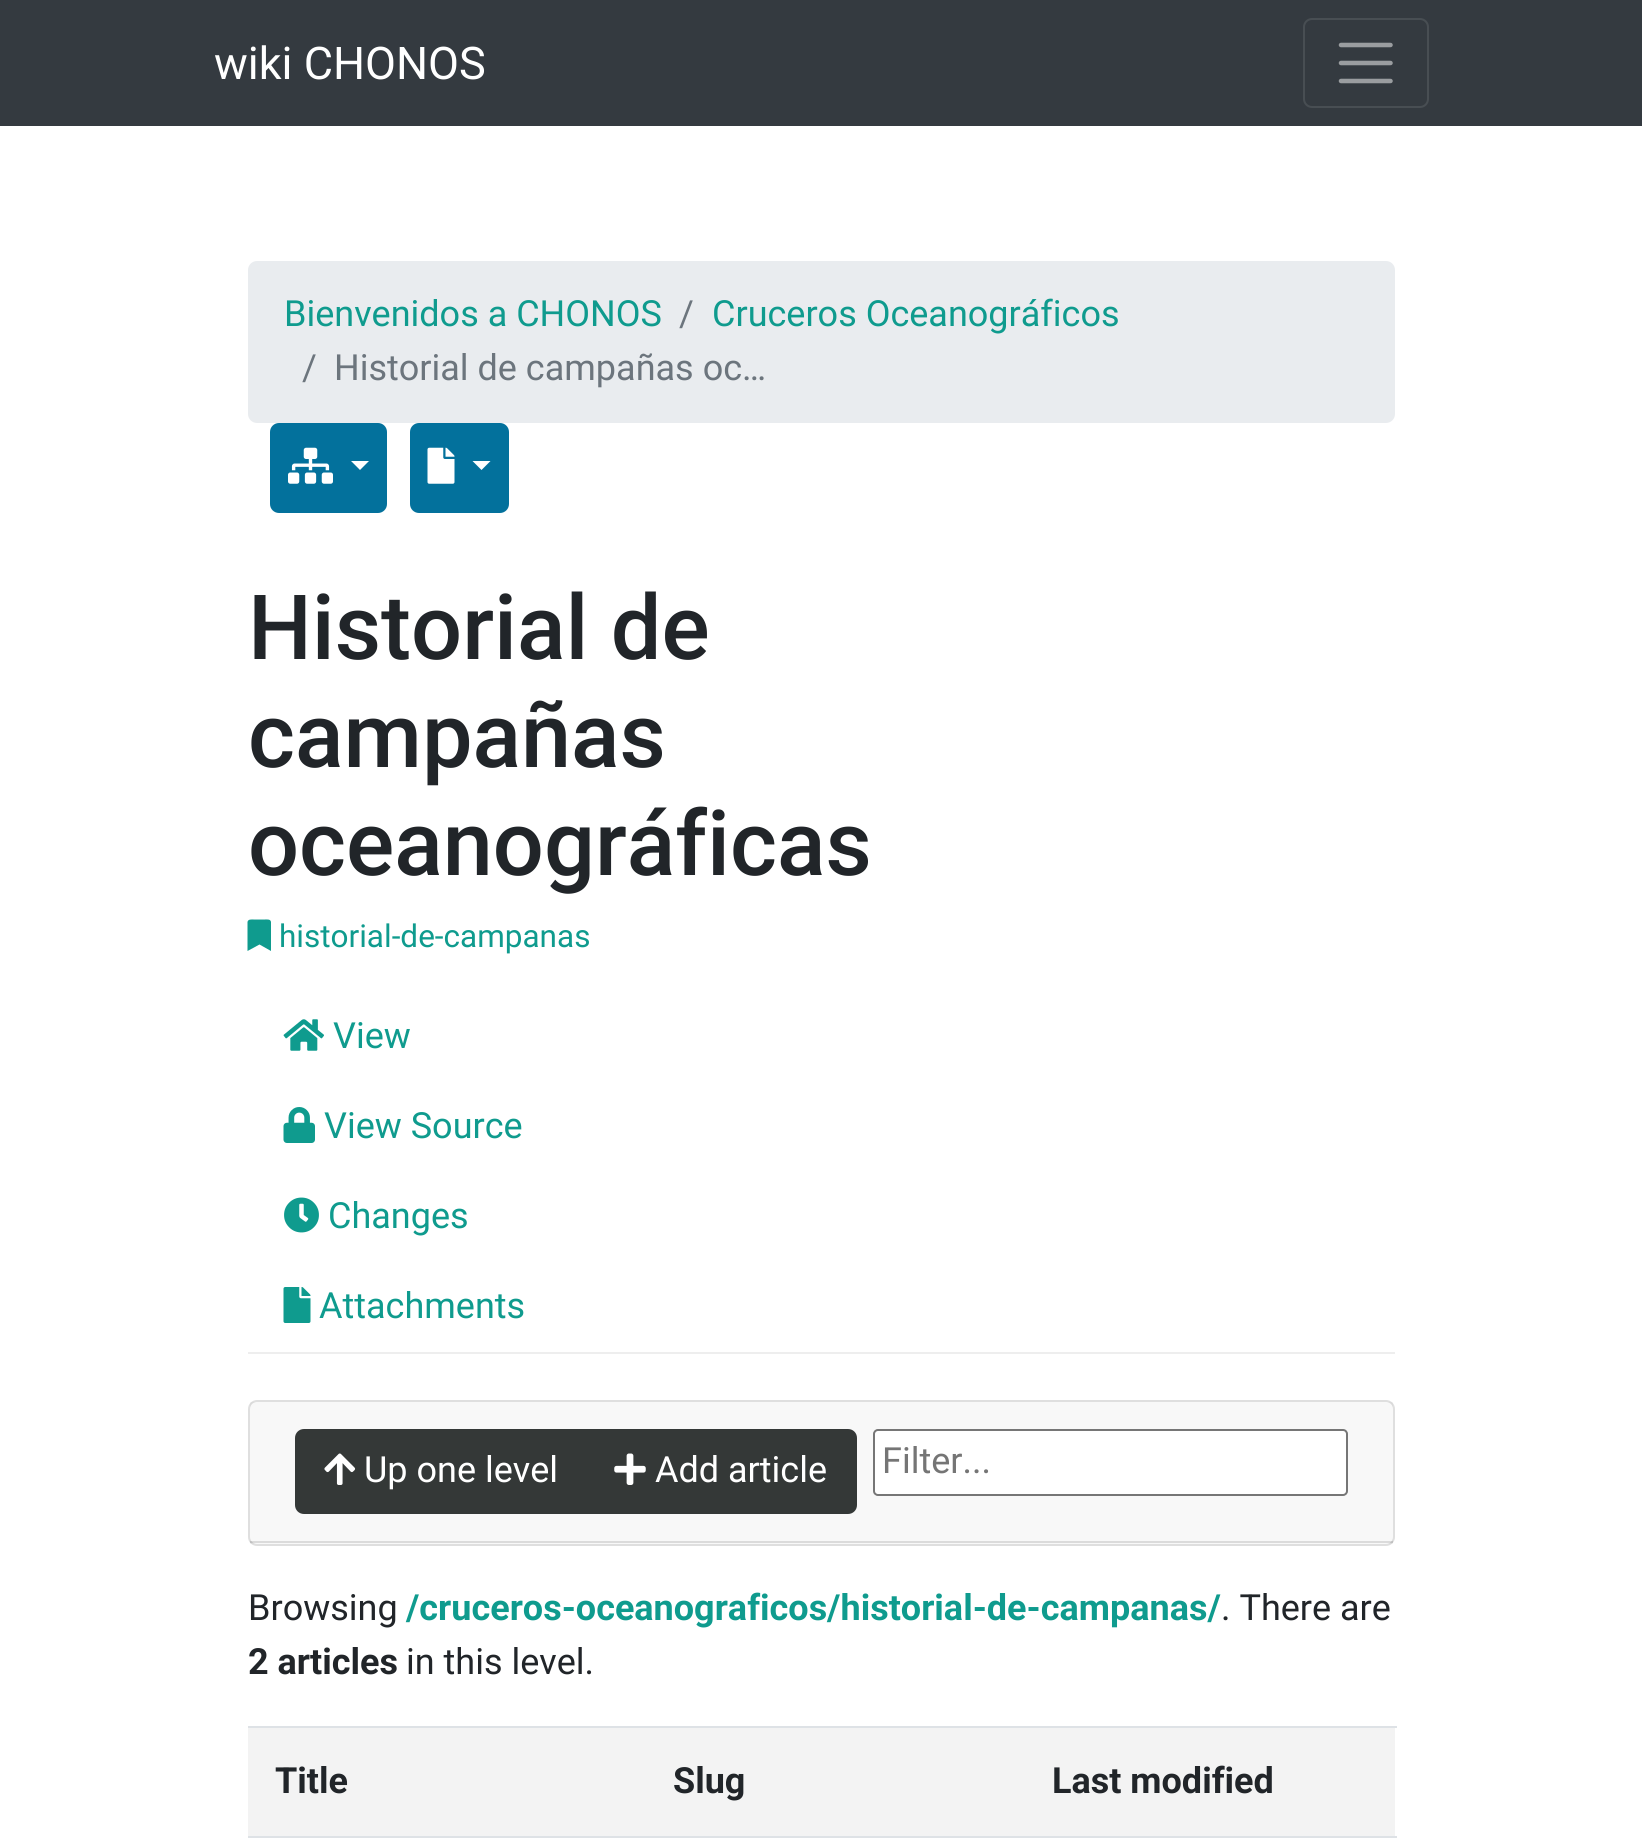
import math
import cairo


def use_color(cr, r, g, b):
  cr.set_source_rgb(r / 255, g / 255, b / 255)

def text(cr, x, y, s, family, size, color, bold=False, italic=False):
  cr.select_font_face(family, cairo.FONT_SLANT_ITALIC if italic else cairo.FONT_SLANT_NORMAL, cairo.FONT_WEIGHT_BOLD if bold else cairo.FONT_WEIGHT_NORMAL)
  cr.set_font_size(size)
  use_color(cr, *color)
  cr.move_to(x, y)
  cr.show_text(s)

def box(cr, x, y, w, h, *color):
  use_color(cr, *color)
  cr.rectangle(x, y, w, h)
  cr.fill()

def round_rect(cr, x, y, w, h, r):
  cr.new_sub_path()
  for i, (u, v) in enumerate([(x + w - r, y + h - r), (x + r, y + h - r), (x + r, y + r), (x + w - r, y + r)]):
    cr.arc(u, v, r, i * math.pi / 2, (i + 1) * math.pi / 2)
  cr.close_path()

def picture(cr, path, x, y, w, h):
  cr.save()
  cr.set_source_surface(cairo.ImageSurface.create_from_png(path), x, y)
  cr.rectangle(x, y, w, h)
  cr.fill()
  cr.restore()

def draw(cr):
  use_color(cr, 255, 255, 255)
  cr.paint()
  box(cr, 0, 0, 1642, 126, 52, 58, 64)
  round_rect(cr, 1304, 19, 124, 88, 8)
  use_color(cr, 72, 78, 83)
  cr.stroke()
  cr.new_path()
  cr.move_to(1341, 45)
  cr.line_to(1390.5, 45)
  cr.move_to(1341, 63)
  cr.line_to(1390.5, 63)
  cr.move_to(1341, 81)
  cr.line_to(1390.5, 81)
  use_color(cr, 154, 157, 160)
  cr.set_line_width(4.5)
  cr.set_line_cap(cairo.LINE_CAP_ROUND)
  cr.stroke()
  use_color(cr, 233, 236, 239)
  round_rect(cr, 248, 261, 1147, 162, 9)
  cr.fill()
  use_color(cr, 3, 113, 156)
  round_rect(cr, 271, 424, 115, 88, 8)
  cr.fill_preserve()
  cr.set_line_width(2)
  cr.set_line_cap(cairo.LINE_CAP_BUTT)
  cr.stroke()
  picture(cr, "img_01.png", 288, 447, 45, 37)
  use_color(cr, 255, 255, 255)
  cr.new_path()
  cr.move_to(351, 461)
  cr.line_to(369, 461)
  cr.line_to(360, 470)
  cr.close_path()
  cr.fill()
  use_color(cr, 3, 113, 156)
  round_rect(cr, 411, 424, 97, 88, 8)
  cr.fill_preserve()
  cr.stroke()
  picture(cr, "img_02.png", 427, 447, 28, 37)
  use_color(cr, 255, 255, 255)
  cr.new_path()
  cr.move_to(472.5, 461)
  cr.line_to(490.5, 461)
  cr.line_to(481.5, 470)
  cr.close_path()
  cr.fill()
  box(cr, 248, 1352, 1147, 2, 238, 238, 238)
  use_color(cr, 15, 155, 142)
  cr.new_path()
  cr.move_to(247.5, 951)
  cr.line_to(247.5, 922)
  cr.curve_to(248, 919, 251.5, 919.5, 253.5, 919.5)
  cr.line_to(265, 919.5)
  cr.curve_to(267.5, 919.5, 270.5, 919, 271, 922)
  cr.line_to(271, 951)
  cr.line_to(259.5, 944.5)
  cr.close_path()
  cr.fill()
  picture(cr, "img_03.png", 283, 1019, 41, 32)
  picture(cr, "img_04.png", 283, 1107, 32, 36)
  picture(cr, "img_05.png", 284, 1197, 35, 36)
  picture(cr, "img_06.png", 283, 1287, 28, 36)
  round_rect(cr, 249, 1401, 1145, 144, 8)
  use_color(cr, 223, 223, 223)
  cr.stroke()
  cr.set_source_rgba(0, 0, 0, 0.03)
  cr.rectangle(250, 1402, 1143, 142)
  cr.fill()
  cr.set_source_rgba(0, 0, 0, 0.12)
  cr.rectangle(250, 1541, 1143, 2)
  cr.fill()
  use_color(cr, 52, 56, 55)
  cr.new_path()
  cr.move_to(304, 1430)
  cr.line_to(586, 1430)
  cr.line_to(586, 1513)
  cr.line_to(304, 1513)
  cr.curve_to(299.5, 1513, 296, 1509.5, 296, 1505)
  cr.line_to(296, 1438)
  cr.curve_to(296, 1433.5, 299.5, 1430, 304, 1430)
  cr.close_path()
  cr.fill_preserve()
  cr.stroke()
  picture(cr, "img_07.png", 324, 1453, 32, 32)
  cr.new_path()
  cr.move_to(586, 1430)
  cr.line_to(848, 1430)
  cr.curve_to(852.5, 1430, 856, 1433.5, 856, 1438)
  cr.line_to(856, 1505)
  cr.curve_to(856, 1509.5, 852.5, 1513, 848, 1513)
  cr.line_to(586, 1513)
  cr.close_path()
  cr.fill_preserve()
  cr.stroke()
  picture(cr, "img_08.png", 614, 1453, 32, 32)
  use_color(cr, 255, 255, 255)
  round_rect(cr, 874, 1430, 473, 65, 4)
  cr.fill_preserve()
  use_color(cr, 118, 118, 118)
  cr.stroke()
  box(cr, 248, 1728, 1147, 108, 243, 243, 243)
  box(cr, 248, 1726, 1149, 2, 222, 226, 230)
  box(cr, 248, 1836, 1149, 2, 222, 226, 230)
  text(cr, 214, 79, "wiki CHONOS", "Roboto", 45, (255, 255, 255))
  text(cr, 284, 326, "Bienvenidos a CHONOS", "Roboto", 36, (15, 155, 142))
  text(cr, 679, 326, "/", "Roboto", 36, (108, 117, 125))
  text(cr, 712, 326, "Cruceros Oceanográficos", "Roboto", 36, (15, 155, 142))
  text(cr, 302, 380, "/", "Roboto", 36, (108, 117, 125))
  text(cr, 334, 380, "Historial de campañas oc…", "Roboto", 36, (108, 117, 125))
  text(cr, 248, 659, "Historial de", "Roboto Medium", 90, (33, 37, 41))
  text(cr, 248, 767, "campañas", "Roboto Medium", 90, (33, 37, 41))
  text(cr, 248, 875, "oceanográficas", "Roboto Medium", 90, (33, 37, 41))
  text(cr, 279, 947, "historial-de-campanas", "Roboto", 31.5, (15, 155, 142))
  text(cr, 333, 1048, "View", "Roboto", 36, (15, 155, 142))
  text(cr, 324, 1138, "View Source", "Roboto", 36, (15, 155, 142))
  text(cr, 328, 1228, "Changes", "Roboto", 36, (15, 155, 142))
  text(cr, 319, 1318, "Attachments", "Roboto", 36, (15, 155, 142))
  text(cr, 364, 1482, "Up one level", "Roboto", 36, (255, 255, 255))
  text(cr, 655, 1482, "Add article", "Roboto", 36, (255, 255, 255))
  text(cr, 882, 1473, "Filter...", "Roboto", 36, (117, 117, 117))
  text(cr, 248, 1620, "Browsing", "Roboto", 36, (33, 37, 41))
  text(cr, 406, 1620, "/cruceros-oceanograficos/historial-de-campanas/", "Roboto", 36, (15, 155, 142), bold=True)
  text(cr, 1221, 1620, ". There are", "Roboto", 36, (33, 37, 41))
  text(cr, 248, 1674, "2 articles", "Roboto", 36, (33, 37, 41), bold=True)
  text(cr, 406, 1674, "in this level.", "Roboto", 36, (33, 37, 41))
  text(cr, 275, 1793, "Title", "Roboto", 36, (33, 37, 41), bold=True)
  text(cr, 673, 1793, "Slug", "Roboto", 36, (33, 37, 41), bold=True)
  text(cr, 1052, 1793, "Last modified", "Roboto", 36, (33, 37, 41), bold=True)


surface = cairo.ImageSurface(cairo.FORMAT_RGB24, 1642, 1846)
cr = cairo.Context(surface)
options = cairo.FontOptions()
options.set_hint_metrics(cairo.HINT_METRICS_OFF)
options.set_hint_style(cairo.HINT_STYLE_NONE)
cr.set_font_options(options)
cr.set_miter_limit(4)
draw(cr)
surface.write_to_png("out.png")
